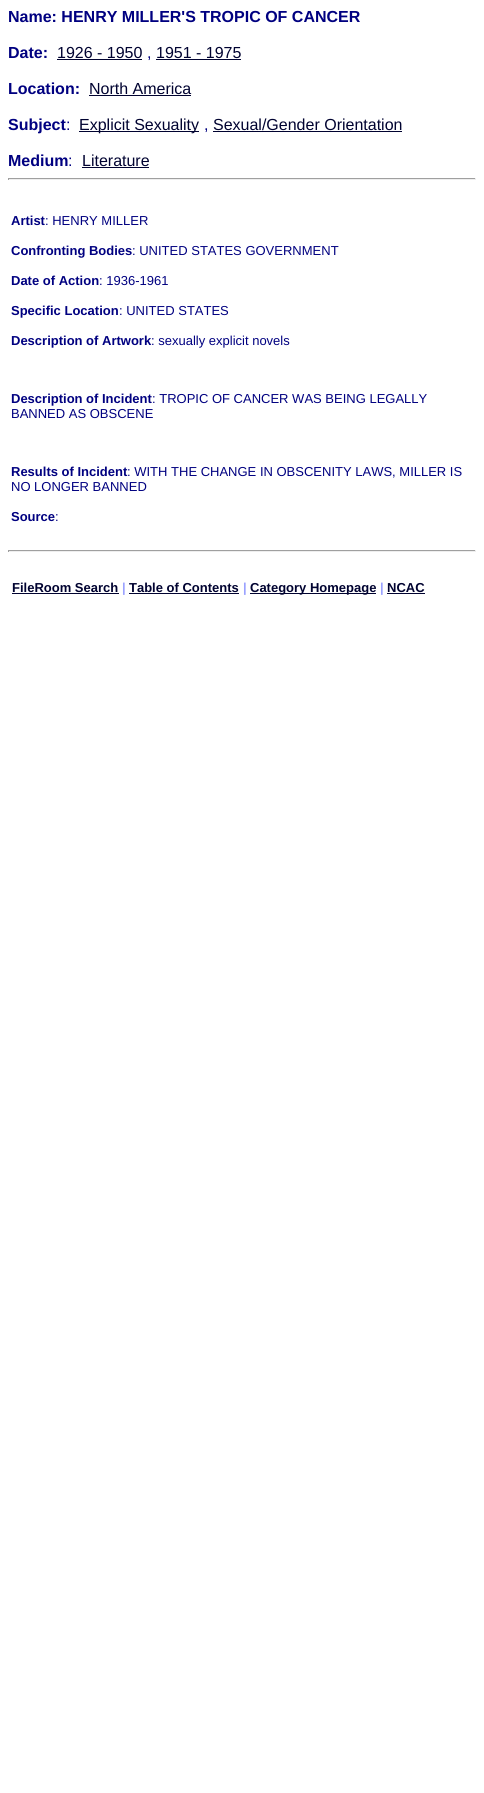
import math
import cairo


def use_color(cr, r, g, b):
  cr.set_source_rgb(r / 255, g / 255, b / 255)

def text(cr, x, y, s, family, size, color, bold=False, italic=False):
  cr.select_font_face(family, cairo.FONT_SLANT_ITALIC if italic else cairo.FONT_SLANT_NORMAL, cairo.FONT_WEIGHT_BOLD if bold else cairo.FONT_WEIGHT_NORMAL)
  cr.set_font_size(size)
  use_color(cr, *color)
  cr.move_to(x, y)
  cr.show_text(s)

def box(cr, x, y, w, h, *color):
  use_color(cr, *color)
  cr.rectangle(x, y, w, h)
  cr.fill()

def draw(cr):
  use_color(cr, 255, 255, 255)
  cr.paint()
  box(cr, 57, 59, 85, 1, 0, 2, 48)
  box(cr, 156, 59, 85, 1, 0, 2, 48)
  box(cr, 89, 95, 102, 1, 0, 2, 48)
  box(cr, 79, 131, 120, 1, 0, 2, 48)
  box(cr, 213, 131, 189, 1, 0, 2, 48)
  box(cr, 82, 167, 67, 1, 0, 2, 48)
  box(cr, 8, 178, 468, 1, 159, 159, 159)
  box(cr, 475, 178, 1, 2, 238, 238, 238)
  box(cr, 8, 179, 468, 1, 238, 238, 238)
  box(cr, 8, 178, 1, 2, 159, 159, 159)
  box(cr, 8, 550, 468, 1, 159, 159, 159)
  box(cr, 475, 550, 1, 2, 238, 238, 238)
  box(cr, 8, 551, 468, 1, 238, 238, 238)
  box(cr, 8, 550, 1, 2, 159, 159, 159)
  box(cr, 12, 593, 107, 1, 0, 2, 48)
  box(cr, 129, 593, 110, 1, 0, 2, 48)
  box(cr, 250, 593, 126, 1, 0, 2, 48)
  box(cr, 387, 593, 38, 1, 0, 2, 48)
  text(cr, 8, 22, "Name: HENRY MILLER'S TROPIC OF CANCER", "Liberation Sans", 16, (0, 0, 128), bold=True)
  text(cr, 8, 58, "Date:", "Liberation Sans", 16, (0, 0, 128), bold=True)
  text(cr, 57, 58, "1926 - 1950", "Liberation Sans", 16, (0, 2, 48))
  text(cr, 147, 58, ",", "Liberation Sans", 16, (0, 0, 128))
  text(cr, 156, 58, "1951 - 1975", "Liberation Sans", 16, (0, 2, 48))
  text(cr, 8, 94, "Location:", "Liberation Sans", 16, (0, 0, 128), bold=True)
  text(cr, 89, 94, "North America", "Liberation Sans", 16, (0, 2, 48))
  text(cr, 8, 130, "Subject", "Liberation Sans", 16, (0, 0, 128), bold=True)
  text(cr, 66, 130, ":", "Liberation Sans", 16, (0, 0, 128))
  text(cr, 79, 130, "Explicit Sexuality", "Liberation Sans", 16, (0, 2, 48))
  text(cr, 213, 130, "Sexual/Gender Orientation", "Liberation Sans", 16, (0, 2, 48))
  text(cr, 204, 130, ",", "Liberation Sans", 16, (0, 0, 128))
  text(cr, 8, 166, "Medium", "Liberation Sans", 16, (0, 0, 128), bold=True)
  text(cr, 68, 166, ":", "Liberation Sans", 16, (0, 0, 128))
  text(cr, 82, 166, "Literature", "Liberation Sans", 16, (0, 2, 48))
  text(cr, 11, 225, "Artist", "Liberation Sans", 13, (0, 0, 128), bold=True)
  text(cr, 45, 225, ": HENRY MILLER", "Liberation Sans", 13, (0, 0, 128))
  text(cr, 11, 255, "Confronting Bodies", "Liberation Sans", 13, (0, 0, 128), bold=True)
  text(cr, 132, 255, ": UNITED STATES GOVERNMENT", "Liberation Sans", 13, (0, 0, 128))
  text(cr, 11, 285, "Date of Action", "Liberation Sans", 13, (0, 0, 128), bold=True)
  text(cr, 99, 285, ": 1936-1961", "Liberation Sans", 13, (0, 0, 128))
  text(cr, 11, 315, "Specific Location", "Liberation Sans", 13, (0, 0, 128), bold=True)
  text(cr, 119, 315, ": UNITED STATES", "Liberation Sans", 13, (0, 0, 128))
  text(cr, 11, 345, "Description of Artwork", "Liberation Sans", 13, (0, 0, 128), bold=True)
  text(cr, 151, 345, ": sexually explicit novels", "Liberation Sans", 13, (0, 0, 128))
  text(cr, 11, 403, "Description of Incident", "Liberation Sans", 13, (0, 0, 128), bold=True)
  text(cr, 152, 403, ": TROPIC OF CANCER WAS BEING LEGALLY", "Liberation Sans", 13, (0, 0, 128))
  text(cr, 11, 418, "BANNED AS OBSCENE", "Liberation Sans", 13, (0, 0, 128))
  text(cr, 11, 476, "Results of Incident", "Liberation Sans", 13, (0, 0, 128), bold=True)
  text(cr, 127, 476, ": WITH THE CHANGE IN OBSCENITY LAWS, MILLER IS", "Liberation Sans", 13, (0, 0, 128))
  text(cr, 11, 491, "NO LONGER BANNED", "Liberation Sans", 13, (0, 0, 128))
  text(cr, 11, 521, "Source", "Liberation Sans", 13, (0, 0, 128), bold=True)
  text(cr, 55, 521, ":", "Liberation Sans", 13, (0, 0, 128))
  text(cr, 12, 592, "FileRoom Search", "Liberation Sans", 13, (0, 2, 48), bold=True)
  text(cr, 122, 592, "|", "Liberation Sans", 13, (155, 162, 255), bold=True)
  text(cr, 129, 592, "Table of Contents", "Liberation Sans", 13, (0, 2, 48), bold=True)
  text(cr, 243, 592, "|", "Liberation Sans", 13, (155, 162, 255), bold=True)
  text(cr, 250, 592, "Category Homepage", "Liberation Sans", 13, (0, 2, 48), bold=True)
  text(cr, 380, 592, "|", "Liberation Sans", 13, (155, 162, 255), bold=True)
  text(cr, 387, 592, "NCAC", "Liberation Sans", 13, (0, 2, 48), bold=True)


surface = cairo.ImageSurface(cairo.FORMAT_RGB24, 484, 1793)
cr = cairo.Context(surface)
options = cairo.FontOptions()
options.set_hint_metrics(cairo.HINT_METRICS_OFF)
options.set_hint_style(cairo.HINT_STYLE_NONE)
cr.set_font_options(options)
cr.set_miter_limit(4)
draw(cr)
surface.write_to_png("out.png")
